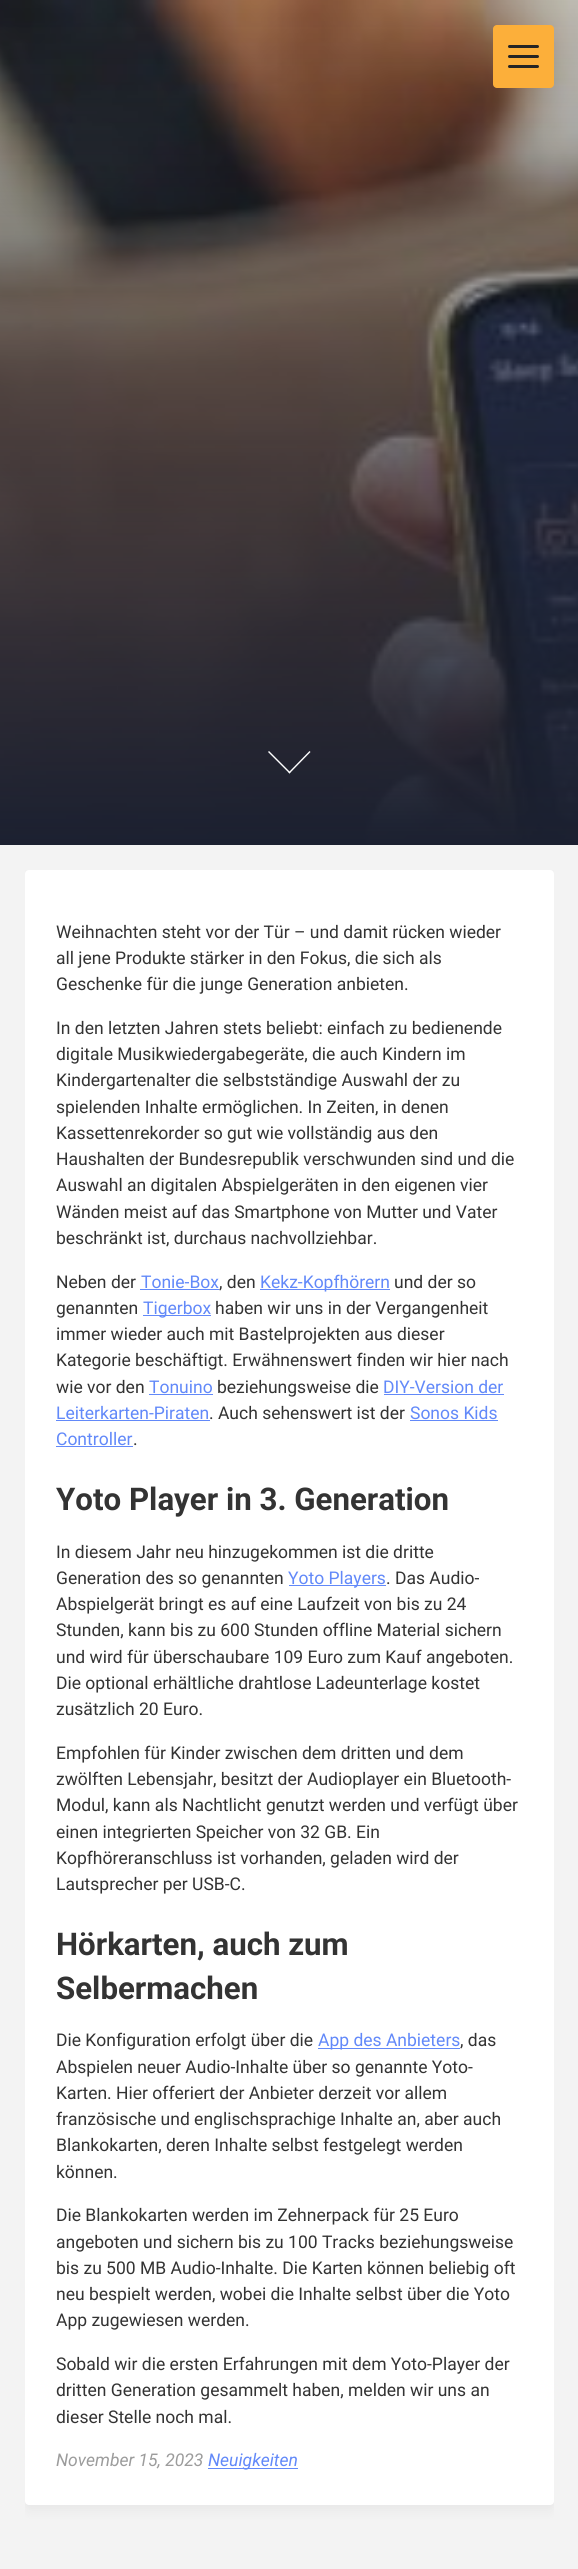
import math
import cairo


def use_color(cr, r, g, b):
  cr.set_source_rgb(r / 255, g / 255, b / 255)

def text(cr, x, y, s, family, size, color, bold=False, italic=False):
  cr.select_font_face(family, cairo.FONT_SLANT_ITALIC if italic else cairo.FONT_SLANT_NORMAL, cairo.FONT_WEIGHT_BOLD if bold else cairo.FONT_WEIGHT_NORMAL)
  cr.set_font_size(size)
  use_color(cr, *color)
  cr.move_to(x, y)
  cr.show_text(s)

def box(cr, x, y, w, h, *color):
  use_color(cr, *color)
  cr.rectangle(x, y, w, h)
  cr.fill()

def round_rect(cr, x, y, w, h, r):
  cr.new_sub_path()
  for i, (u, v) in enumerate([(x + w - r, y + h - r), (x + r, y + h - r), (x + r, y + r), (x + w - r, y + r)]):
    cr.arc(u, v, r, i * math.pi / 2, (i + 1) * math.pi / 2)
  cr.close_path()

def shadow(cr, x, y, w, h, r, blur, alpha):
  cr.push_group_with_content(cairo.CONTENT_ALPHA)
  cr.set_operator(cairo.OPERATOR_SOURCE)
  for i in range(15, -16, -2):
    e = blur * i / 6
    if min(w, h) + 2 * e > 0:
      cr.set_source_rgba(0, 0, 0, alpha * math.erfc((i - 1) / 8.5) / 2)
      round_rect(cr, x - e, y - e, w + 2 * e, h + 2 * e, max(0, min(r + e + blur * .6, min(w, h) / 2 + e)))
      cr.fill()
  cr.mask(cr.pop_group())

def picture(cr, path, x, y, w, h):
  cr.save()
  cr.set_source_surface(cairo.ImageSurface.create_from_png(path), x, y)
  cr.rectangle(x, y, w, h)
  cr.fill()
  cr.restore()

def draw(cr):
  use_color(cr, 255, 255, 255)
  cr.paint()
  picture(cr, "img_01.png", 0, 0, 578, 845)
  use_color(cr, 252, 175, 58)
  round_rect(cr, 493, 25, 61, 63, 4)
  cr.fill()
  use_color(cr, 37, 37, 37)
  round_rect(cr, 508, 55, 31, 3, 1.5)
  cr.fill()
  round_rect(cr, 508, 45, 31, 3, 1.5)
  cr.fill()
  round_rect(cr, 508, 65, 31, 3, 1.5)
  cr.fill()
  use_color(cr, 255, 255, 255)
  cr.new_path()
  cr.move_to(288.5, 772.5)
  cr.line_to(309.5, 751)
  cr.line_to(310.5, 752)
  cr.line_to(289.5, 773.5)
  cr.close_path()
  cr.fill()
  cr.new_path()
  cr.move_to(268, 752)
  cr.line_to(269, 751)
  cr.line_to(290.5, 772.5)
  cr.line_to(289.5, 773.5)
  cr.close_path()
  cr.fill()
  box(cr, 0, 845, 578, 1724, 243, 243, 243)
  cr.save()
  cr.rectangle(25, 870, 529, 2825)
  cr.clip()
  use_color(cr, 0, 0, 0)
  shadow(cr, 25, 875, 529, 1635, 4, 6, 0.05)
  cr.restore()
  use_color(cr, 255, 255, 255)
  round_rect(cr, 25, 870, 529, 1635, 4)
  cr.fill()
  box(cr, 140, 1289, 79, 1, 98, 137, 249)
  box(cr, 260, 1289, 130, 1, 98, 137, 249)
  box(cr, 143, 1315, 68, 1, 98, 137, 249)
  box(cr, 149, 1394, 64, 1, 98, 137, 249)
  box(cr, 384, 1394, 120, 1, 98, 137, 249)
  box(cr, 56, 1420, 154, 1, 98, 137, 249)
  box(cr, 410, 1420, 88, 1, 98, 137, 249)
  box(cr, 56, 1446, 77, 1, 98, 137, 249)
  box(cr, 289, 1585, 97, 1, 98, 137, 249)
  box(cr, 318, 2048, 142, 1, 98, 137, 249)
  box(cr, 208, 2468, 90, 1, 98, 137, 249)
  text(cr, 56, 938, "Weihnachten steht vor der Tür – und damit rücken wieder", "Roboto", 17.5, (51, 51, 51))
  text(cr, 56, 964, "all jene Produkte stärker in den Fokus, die sich als", "Roboto", 17.5, (51, 51, 51))
  text(cr, 56, 990, "Geschenke für die junge Generation anbieten.", "Roboto", 17.5, (51, 51, 51))
  text(cr, 56, 1034, "In den letzten Jahren stets beliebt: einfach zu bedienende", "Roboto", 17.5, (51, 51, 51))
  text(cr, 56, 1060, "digitale Musikwiedergabegeräte, die auch Kindern im", "Roboto", 17.5, (51, 51, 51))
  text(cr, 56, 1086, "Kindergartenalter die selbstständige Auswahl der zu", "Roboto", 17.5, (51, 51, 51))
  text(cr, 56, 1113, "spielenden Inhalte ermöglichen. In Zeiten, in denen", "Roboto", 17.5, (51, 51, 51))
  text(cr, 56, 1139, "Kassettenrekorder so gut wie vollständig aus den", "Roboto", 17.5, (51, 51, 51))
  text(cr, 56, 1165, "Haushalten der Bundesrepublik verschwunden sind und die", "Roboto", 17.5, (51, 51, 51))
  text(cr, 56, 1191, "Auswahl an digitalen Abspielgeräten in den eigenen vier", "Roboto", 17.5, (51, 51, 51))
  text(cr, 56, 1218, "Wänden meist auf das Smartphone von Mutter und Vater", "Roboto", 17.5, (51, 51, 51))
  text(cr, 56, 1244, "beschränkt ist, durchaus nachvollziehbar.", "Roboto", 17.5, (51, 51, 51))
  text(cr, 56, 1288, "Neben der", "Roboto", 17.5, (51, 51, 51))
  text(cr, 141, 1288, "Tonie-Box", "Roboto", 17.5, (98, 137, 249))
  text(cr, 219, 1288, ", den", "Roboto", 17.5, (51, 51, 51))
  text(cr, 260, 1288, "Kekz-Kopfhörern", "Roboto", 17.5, (98, 137, 249))
  text(cr, 394, 1288, "und der so", "Roboto", 17.5, (51, 51, 51))
  text(cr, 56, 1314, "genannten", "Roboto", 17.5, (51, 51, 51))
  text(cr, 143, 1314, "Tigerbox", "Roboto", 17.5, (98, 137, 249))
  text(cr, 215, 1314, "haben wir uns in der Vergangenheit", "Roboto", 17.5, (51, 51, 51))
  text(cr, 56, 1340, "immer wieder auch mit Bastelprojekten aus dieser", "Roboto", 17.5, (51, 51, 51))
  text(cr, 56, 1366, "Kategorie beschäftigt. Erwähnenswert finden wir hier nach", "Roboto", 17.5, (51, 51, 51))
  text(cr, 56, 1393, "wie vor den", "Roboto", 17.5, (51, 51, 51))
  text(cr, 149, 1393, "Tonuino", "Roboto", 17.5, (98, 137, 249))
  text(cr, 217, 1393, "beziehungsweise die", "Roboto", 17.5, (51, 51, 51))
  text(cr, 383, 1393, "DIY-Version der", "Roboto", 17.5, (98, 137, 249))
  text(cr, 56, 1419, "Leiterkarten-Piraten", "Roboto", 17.5, (98, 137, 249))
  text(cr, 209, 1419, ". Auch sehenswert ist der", "Roboto", 17.5, (51, 51, 51))
  text(cr, 410, 1419, "Sonos Kids", "Roboto", 17.5, (98, 137, 249))
  text(cr, 56, 1445, "Controller", "Roboto", 17.5, (98, 137, 249))
  text(cr, 133, 1445, ".", "Roboto", 17.5, (51, 51, 51))
  text(cr, 56, 1510, "Yoto Player in 3. Generation", "Roboto", 31.25, (51, 51, 51), bold=True)
  text(cr, 56, 1558, "In diesem Jahr neu hinzugekommen ist die dritte", "Roboto", 17.5, (51, 51, 51))
  text(cr, 56, 1584, "Generation des so genannten", "Roboto", 17.5, (51, 51, 51))
  text(cr, 288, 1584, "Yoto Players", "Roboto", 17.5, (98, 137, 249))
  text(cr, 386, 1584, ". Das Audio-", "Roboto", 17.5, (51, 51, 51))
  text(cr, 56, 1610, "Abspielgerät bringt es auf eine Laufzeit von bis zu 24", "Roboto", 17.5, (51, 51, 51))
  text(cr, 56, 1636, "Stunden, kann bis zu 600 Stunden offline Material sichern", "Roboto", 17.5, (51, 51, 51))
  text(cr, 56, 1663, "und wird für überschaubare 109 Euro zum Kauf angeboten.", "Roboto", 17.5, (51, 51, 51))
  text(cr, 56, 1689, "Die optional erhältliche drahtlose Ladeunterlage kostet", "Roboto", 17.5, (51, 51, 51))
  text(cr, 56, 1715, "zusätzlich 20 Euro.", "Roboto", 17.5, (51, 51, 51))
  text(cr, 56, 1759, "Empfohlen für Kinder zwischen dem dritten und dem", "Roboto", 17.5, (51, 51, 51))
  text(cr, 56, 1785, "zwölften Lebensjahr, besitzt der Audioplayer ein Bluetooth-", "Roboto", 17.5, (51, 51, 51))
  text(cr, 56, 1811, "Modul, kann als Nachtlicht genutzt werden und verfügt über", "Roboto", 17.5, (51, 51, 51))
  text(cr, 56, 1838, "einen integrierten Speicher von 32 GB. Ein", "Roboto", 17.5, (51, 51, 51))
  text(cr, 56, 1864, "Kopfhöreranschluss ist vorhanden, geladen wird der", "Roboto", 17.5, (51, 51, 51))
  text(cr, 56, 1890, "Lautsprecher per USB-C.", "Roboto", 17.5, (51, 51, 51))
  text(cr, 56, 1955, "Hörkarten, auch zum", "Roboto", 31.25, (51, 51, 51), bold=True)
  text(cr, 56, 1999, "Selbermachen", "Roboto", 31.25, (51, 51, 51), bold=True)
  text(cr, 56, 2046, "Die Konfiguration erfolgt über die", "Roboto", 17.5, (51, 51, 51))
  text(cr, 318, 2046, "App des Anbieters", "Roboto", 17.5, (98, 137, 249))
  text(cr, 460, 2046, ", das", "Roboto", 17.5, (51, 51, 51))
  text(cr, 56, 2073, "Abspielen neuer Audio-Inhalte über so genannte Yoto-", "Roboto", 17.5, (51, 51, 51))
  text(cr, 56, 2099, "Karten. Hier offeriert der Anbieter derzeit vor allem", "Roboto", 17.5, (51, 51, 51))
  text(cr, 56, 2125, "französische und englischsprachige Inhalte an, aber auch", "Roboto", 17.5, (51, 51, 51))
  text(cr, 56, 2151, "Blankokarten, deren Inhalte selbst festgelegt werden", "Roboto", 17.5, (51, 51, 51))
  text(cr, 56, 2178, "können.", "Roboto", 17.5, (51, 51, 51))
  text(cr, 56, 2221, "Die Blankokarten werden im Zehnerpack für 25 Euro", "Roboto", 17.5, (51, 51, 51))
  text(cr, 56, 2248, "angeboten und sichern bis zu 100 Tracks beziehungsweise", "Roboto", 17.5, (51, 51, 51))
  text(cr, 56, 2274, "bis zu 500 MB Audio-Inhalte. Die Karten können beliebig oft", "Roboto", 17.5, (51, 51, 51))
  text(cr, 56, 2300, "neu bespielt werden, wobei die Inhalte selbst über die Yoto", "Roboto", 17.5, (51, 51, 51))
  text(cr, 56, 2326, "App zugewiesen werden.", "Roboto", 17.5, (51, 51, 51))
  text(cr, 56, 2370, "Sobald wir die ersten Erfahrungen mit dem Yoto-Player der", "Roboto", 17.5, (51, 51, 51))
  text(cr, 56, 2396, "dritten Generation gesammelt haben, melden wir uns an", "Roboto", 17.5, (51, 51, 51))
  text(cr, 56, 2423, "dieser Stelle noch mal.", "Roboto", 17.5, (51, 51, 51))
  text(cr, 56, 2466, "November 15, 2023", "Roboto", 17.5, (156, 156, 156), italic=True)
  text(cr, 208, 2466, "Neuigkeiten", "Roboto", 17.5, (98, 137, 249), italic=True)


surface = cairo.ImageSurface(cairo.FORMAT_RGB24, 578, 2569)
cr = cairo.Context(surface)
options = cairo.FontOptions()
options.set_hint_metrics(cairo.HINT_METRICS_OFF)
options.set_hint_style(cairo.HINT_STYLE_NONE)
cr.set_font_options(options)
cr.set_miter_limit(4)
draw(cr)
surface.write_to_png("out.png")
